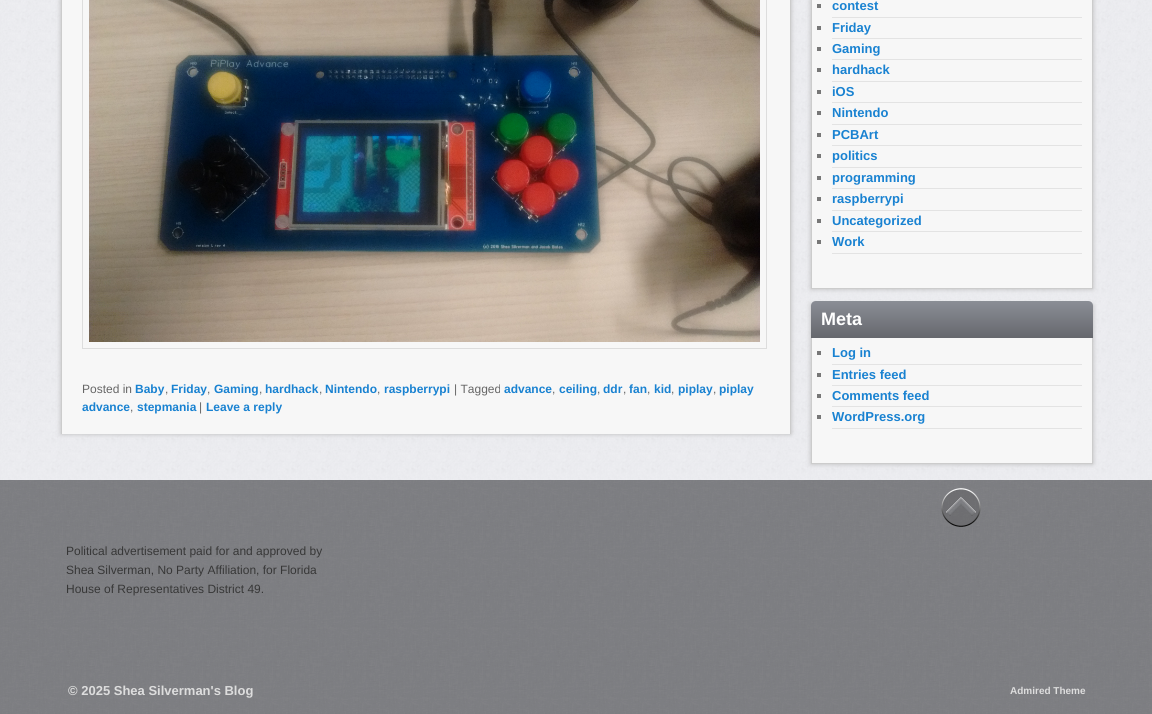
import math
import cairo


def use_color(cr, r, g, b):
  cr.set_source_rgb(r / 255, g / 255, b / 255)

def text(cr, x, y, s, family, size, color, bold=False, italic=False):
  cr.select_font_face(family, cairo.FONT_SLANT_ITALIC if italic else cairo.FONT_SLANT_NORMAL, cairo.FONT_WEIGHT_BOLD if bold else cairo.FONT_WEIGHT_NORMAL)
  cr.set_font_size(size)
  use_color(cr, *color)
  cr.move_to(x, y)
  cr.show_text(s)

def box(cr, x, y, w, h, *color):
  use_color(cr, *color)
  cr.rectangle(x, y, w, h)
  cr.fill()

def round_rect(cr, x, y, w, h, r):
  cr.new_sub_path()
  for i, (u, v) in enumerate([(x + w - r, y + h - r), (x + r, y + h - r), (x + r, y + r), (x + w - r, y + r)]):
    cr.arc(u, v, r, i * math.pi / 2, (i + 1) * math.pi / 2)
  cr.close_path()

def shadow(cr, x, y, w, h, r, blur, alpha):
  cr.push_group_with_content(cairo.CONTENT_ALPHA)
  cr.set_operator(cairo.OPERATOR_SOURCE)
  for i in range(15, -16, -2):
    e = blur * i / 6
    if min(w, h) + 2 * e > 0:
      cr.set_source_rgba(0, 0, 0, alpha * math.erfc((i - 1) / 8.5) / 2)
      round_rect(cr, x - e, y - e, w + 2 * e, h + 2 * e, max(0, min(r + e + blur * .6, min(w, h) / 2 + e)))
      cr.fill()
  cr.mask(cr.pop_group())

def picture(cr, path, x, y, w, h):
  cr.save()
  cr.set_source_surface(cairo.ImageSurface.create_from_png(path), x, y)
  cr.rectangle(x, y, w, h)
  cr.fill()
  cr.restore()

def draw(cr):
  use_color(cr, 255, 255, 255)
  cr.paint()
  picture(cr, "img_01.png", 0, 0, 1152, 480)
  use_color(cr, 187, 187, 187)
  shadow(cr, 61, -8, 730, 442, 0, 2.5, 1)
  box(cr, 62, 0, 728, 434, 247, 247, 247)
  box(cr, 790, 0, 1, 434, 204, 204, 204)
  box(cr, 61, 0, 1, 434, 204, 204, 204)
  cr.rectangle(82.5, -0.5, 684, 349)
  use_color(cr, 221, 221, 221)
  cr.set_line_width(1)
  cr.stroke()
  picture(cr, "img_02.png", 89, 0, 671, 342)
  use_color(cr, 187, 187, 187)
  shadow(cr, 811, -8, 282, 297, 0, 2.5, 1)
  use_color(cr, 247, 247, 247)
  cr.rectangle(811.5, -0.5, 281, 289)
  cr.fill_preserve()
  use_color(cr, 204, 204, 204)
  cr.stroke()
  box(cr, 832, 17, 250, 1, 227, 227, 227)
  box(cr, 817, 4, 4, 4, 119, 119, 119)
  box(cr, 832, 38, 250, 1, 227, 227, 227)
  box(cr, 817, 26, 4, 4, 119, 119, 119)
  box(cr, 832, 59, 250, 1, 227, 227, 227)
  box(cr, 817, 47, 4, 4, 119, 119, 119)
  box(cr, 832, 81, 250, 1, 227, 227, 227)
  box(cr, 817, 68, 4, 4, 119, 119, 119)
  box(cr, 832, 102, 250, 1, 227, 227, 227)
  box(cr, 817, 90, 4, 4, 119, 119, 119)
  box(cr, 832, 124, 250, 1, 227, 227, 227)
  box(cr, 817, 111, 4, 4, 119, 119, 119)
  box(cr, 832, 145, 250, 1, 227, 227, 227)
  box(cr, 817, 133, 4, 4, 119, 119, 119)
  box(cr, 832, 167, 250, 1, 227, 227, 227)
  box(cr, 817, 154, 4, 4, 119, 119, 119)
  box(cr, 832, 188, 250, 1, 227, 227, 227)
  box(cr, 817, 176, 4, 4, 119, 119, 119)
  box(cr, 832, 210, 250, 1, 227, 227, 227)
  box(cr, 817, 197, 4, 4, 119, 119, 119)
  box(cr, 832, 231, 250, 1, 227, 227, 227)
  box(cr, 817, 219, 4, 4, 119, 119, 119)
  box(cr, 832, 253, 250, 1, 227, 227, 227)
  box(cr, 817, 240, 4, 4, 119, 119, 119)
  use_color(cr, 187, 187, 187)
  shadow(cr, 811, 305, 282, 159, 0, 2.5, 1)
  box(cr, 812, 338, 280, 125, 247, 247, 247)
  cr.rectangle(811.5, 305.5, 281, 158)
  use_color(cr, 204, 204, 204)
  cr.stroke()
  gradient = cairo.LinearGradient(952, 301, 952, 337)
  gradient.add_color_stop_rgba(0, 0.545, 0.557, 0.588, 1)
  gradient.add_color_stop_rgba(1, 0.4, 0.408, 0.431, 1)
  cr.set_source(gradient)
  cr.new_path()
  cr.move_to(816, 301)
  cr.line_to(1088, 301)
  cr.curve_to(1091, 301, 1093, 303, 1093, 306)
  cr.line_to(1093, 337)
  cr.line_to(811, 337)
  cr.line_to(811, 306)
  cr.curve_to(811, 303, 813, 301, 816, 301)
  cr.close_path()
  cr.fill()
  box(cr, 811, 337, 282, 1, 102, 104, 110)
  box(cr, 832, 364, 250, 1, 227, 227, 227)
  box(cr, 817, 351, 4, 4, 119, 119, 119)
  box(cr, 832, 385, 250, 1, 227, 227, 227)
  box(cr, 817, 373, 4, 4, 119, 119, 119)
  box(cr, 832, 406, 250, 1, 227, 227, 227)
  box(cr, 817, 394, 4, 4, 119, 119, 119)
  box(cr, 832, 428, 250, 1, 227, 227, 227)
  box(cr, 817, 415, 4, 4, 119, 119, 119)
  picture(cr, "img_03.png", 0, 480, 1152, 234)
  picture(cr, "img_04.png", 941, 488, 40, 39)
  text(cr, 82, 393, "Posted in", "Liberation Sans", 12, (102, 102, 102))
  text(cr, 135, 393, "Baby", "Liberation Sans", 12, (25, 130, 209), bold=True)
  text(cr, 165, 393, ",", "Liberation Sans", 12, (102, 102, 102))
  text(cr, 171, 393, "Friday", "Liberation Sans", 12, (25, 130, 209), bold=True)
  text(cr, 207, 393, ",", "Liberation Sans", 12, (102, 102, 102))
  text(cr, 214, 393, "Gaming", "Liberation Sans", 12, (25, 130, 209), bold=True)
  text(cr, 259, 393, ",", "Liberation Sans", 12, (102, 102, 102))
  text(cr, 265, 393, "hardhack", "Liberation Sans", 12, (25, 130, 209), bold=True)
  text(cr, 319, 393, ",", "Liberation Sans", 12, (102, 102, 102))
  text(cr, 325, 393, "Nintendo", "Liberation Sans", 12, (25, 130, 209), bold=True)
  text(cr, 377, 393, ",", "Liberation Sans", 12, (102, 102, 102))
  text(cr, 384, 393, "raspberrypi", "Liberation Sans", 12, (25, 130, 209), bold=True)
  text(cr, 454, 393, "| Tagged", "Liberation Sans", 12, (102, 102, 102))
  text(cr, 504, 393, "advance", "Liberation Sans", 12, (25, 130, 209), bold=True)
  text(cr, 552, 393, ",", "Liberation Sans", 12, (102, 102, 102))
  text(cr, 559, 393, "ceiling", "Liberation Sans", 12, (25, 130, 209), bold=True)
  text(cr, 597, 393, ",", "Liberation Sans", 12, (102, 102, 102))
  text(cr, 603, 393, "ddr", "Liberation Sans", 12, (25, 130, 209), bold=True)
  text(cr, 623, 393, ",", "Liberation Sans", 12, (102, 102, 102))
  text(cr, 629, 393, "fan", "Liberation Sans", 12, (25, 130, 209), bold=True)
  text(cr, 647, 393, ",", "Liberation Sans", 12, (102, 102, 102))
  text(cr, 654, 393, "kid", "Liberation Sans", 12, (25, 130, 209), bold=True)
  text(cr, 671, 393, ",", "Liberation Sans", 12, (102, 102, 102))
  text(cr, 678, 393, "piplay", "Liberation Sans", 12, (25, 130, 209), bold=True)
  text(cr, 713, 393, ",", "Liberation Sans", 12, (102, 102, 102))
  text(cr, 719, 393, "piplay", "Liberation Sans", 12, (25, 130, 209), bold=True)
  text(cr, 82, 411, "advance", "Liberation Sans", 12, (25, 130, 209), bold=True)
  text(cr, 130, 411, ",", "Liberation Sans", 12, (102, 102, 102))
  text(cr, 137, 411, "stepmania", "Liberation Sans", 12, (25, 130, 209), bold=True)
  text(cr, 199, 411, "|", "Liberation Sans", 12, (102, 102, 102))
  text(cr, 206, 411, "Leave a reply", "Liberation Sans", 12, (25, 130, 209), bold=True)
  text(cr, 832, 10, "contest", "Liberation Sans", 13, (25, 130, 209), bold=True)
  text(cr, 832, 32, "Friday", "Liberation Sans", 13, (25, 130, 209), bold=True)
  text(cr, 832, 53, "Gaming", "Liberation Sans", 13, (25, 130, 209), bold=True)
  text(cr, 832, 74, "hardhack", "Liberation Sans", 13, (25, 130, 209), bold=True)
  text(cr, 832, 96, "iOS", "Liberation Sans", 13, (25, 130, 209), bold=True)
  text(cr, 832, 117, "Nintendo", "Liberation Sans", 13, (25, 130, 209), bold=True)
  text(cr, 832, 139, "PCBArt", "Liberation Sans", 13, (25, 130, 209), bold=True)
  text(cr, 832, 160, "politics", "Liberation Sans", 13, (25, 130, 209), bold=True)
  text(cr, 832, 182, "programming", "Liberation Sans", 13, (25, 130, 209), bold=True)
  text(cr, 832, 203, "raspberrypi", "Liberation Sans", 13, (25, 130, 209), bold=True)
  text(cr, 832, 225, "Uncategorized", "Liberation Sans", 13, (25, 130, 209), bold=True)
  text(cr, 832, 246, "Work", "Liberation Sans", 13, (25, 130, 209), bold=True)
  text(cr, 821, 325, "Meta", "Liberation Sans", 18, (255, 255, 255), bold=True)
  text(cr, 832, 357, "Log in", "Liberation Sans", 13, (25, 130, 209), bold=True)
  text(cr, 832, 379, "Entries feed", "Liberation Sans", 13, (25, 130, 209), bold=True)
  text(cr, 832, 400, "Comments feed", "Liberation Sans", 13, (25, 130, 209), bold=True)
  text(cr, 832, 421, "WordPress.org", "Liberation Sans", 13, (25, 130, 209), bold=True)
  text(cr, 66, 555, "Political advertisement paid for and approved by", "Liberation Sans", 12, (55, 55, 55))
  text(cr, 66, 574, "Shea Silverman, No Party Affiliation, for Florida", "Liberation Sans", 12, (55, 55, 55))
  text(cr, 66, 593, "House of Representatives District 49.", "Liberation Sans", 12, (55, 55, 55))
  text(cr, 68, 695, "© 2025 Shea Silverman's Blog", "Liberation Sans", 13, (221, 221, 221), bold=True)
  text(cr, 1010, 694, "Admired Theme", "Liberation Sans", 10, (221, 221, 221), bold=True)


surface = cairo.ImageSurface(cairo.FORMAT_RGB24, 1152, 714)
cr = cairo.Context(surface)
options = cairo.FontOptions()
options.set_hint_metrics(cairo.HINT_METRICS_OFF)
options.set_hint_style(cairo.HINT_STYLE_NONE)
cr.set_font_options(options)
cr.set_miter_limit(4)
draw(cr)
surface.write_to_png("out.png")
